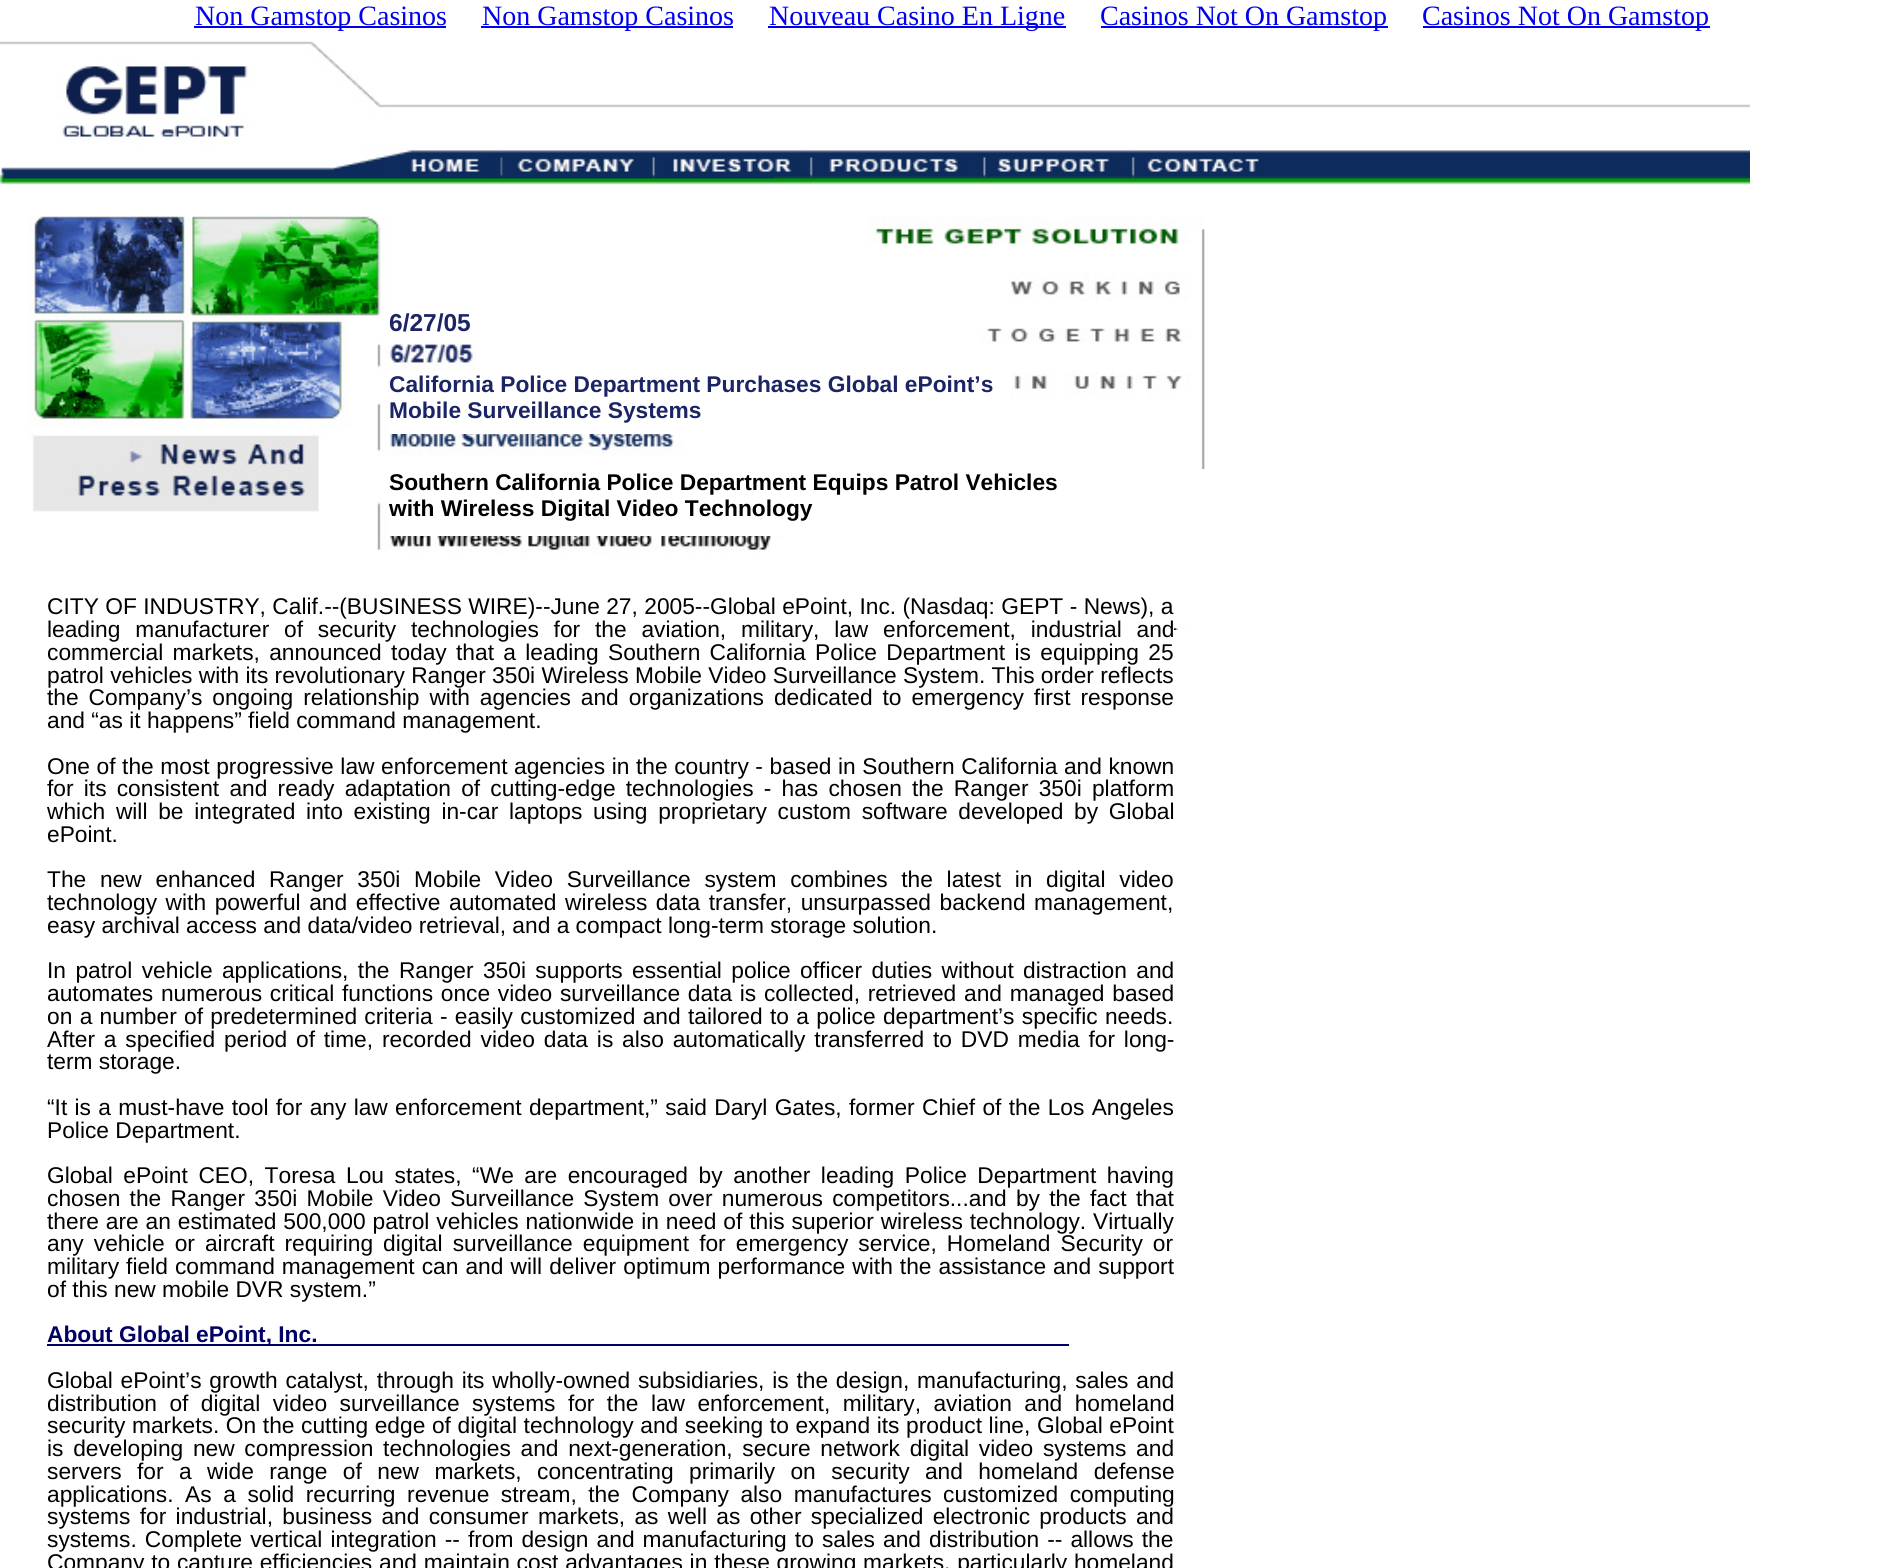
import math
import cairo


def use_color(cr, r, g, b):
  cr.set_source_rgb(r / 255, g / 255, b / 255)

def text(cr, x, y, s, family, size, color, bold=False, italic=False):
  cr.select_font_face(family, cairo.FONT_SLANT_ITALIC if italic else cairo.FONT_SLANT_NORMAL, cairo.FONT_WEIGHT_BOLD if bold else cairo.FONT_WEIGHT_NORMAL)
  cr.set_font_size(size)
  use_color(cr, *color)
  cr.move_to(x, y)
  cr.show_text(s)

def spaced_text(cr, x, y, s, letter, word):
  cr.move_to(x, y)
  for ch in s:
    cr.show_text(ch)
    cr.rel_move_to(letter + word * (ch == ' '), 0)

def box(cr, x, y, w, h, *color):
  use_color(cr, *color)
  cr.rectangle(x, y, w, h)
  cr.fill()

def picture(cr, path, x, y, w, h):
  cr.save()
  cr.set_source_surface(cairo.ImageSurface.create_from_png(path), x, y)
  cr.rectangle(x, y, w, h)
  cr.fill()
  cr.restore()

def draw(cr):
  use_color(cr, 255, 255, 255)
  cr.paint()
  box(cr, 194, 26, 252, 2, 0, 0, 238)
  box(cr, 481, 26, 252, 2, 0, 0, 238)
  box(cr, 768, 26, 298, 2, 0, 0, 238)
  box(cr, 1101, 26, 287, 2, 0, 0, 238)
  box(cr, 1423, 26, 287, 2, 0, 0, 238)
  picture(cr, "img_01.png", 0, 41, 1750, 144)
  picture(cr, "img_02.png", 28, 216, 1177, 414)
  picture(cr, "img_03.png", 1174, 636, 1, 658)
  box(cr, 389, 371, 622, 63, 255, 255, 255)
  box(cr, 389, 469, 816, 67, 255, 255, 255)
  box(cr, 48, 627, 1126, 3, 255, 255, 255)
  box(cr, 47, 1344, 1022, 2, 0, 0, 102)
  text(cr, 195, 25, "Non Gamstop Casinos", "Liberation Serif", 28, (0, 0, 238))
  text(cr, 482, 25, "Non Gamstop Casinos", "Liberation Serif", 28, (0, 0, 238))
  text(cr, 769, 25, "Nouveau Casino En Ligne", "Liberation Serif", 28, (0, 0, 238))
  text(cr, 1100, 25, "Casinos Not On Gamstop", "Liberation Serif", 28, (0, 0, 238))
  text(cr, 1422, 25, "Casinos Not On Gamstop", "Liberation Serif", 28, (0, 0, 238))
  text(cr, 389, 331, "6/27/05", "Liberation Sans", 24.5, (27, 36, 101), bold=True)
  text(cr, 389, 392, "California Police Department Purchases Global ePoint’s", "Liberation Sans", 22.75, (27, 36, 101), bold=True)
  text(cr, 389, 418, "Mobile Surveillance Systems", "Liberation Sans", 22.75, (27, 36, 101), bold=True)
  text(cr, 389, 490, "Southern California Police Department Equips Patrol Vehicles", "Liberation Sans", 22.75, (0, 0, 0), bold=True)
  text(cr, 389, 516, "with Wireless Digital Video Technology", "Liberation Sans", 22.75, (0, 0, 0), bold=True)
  cr.select_font_face("Liberation Sans")
  spaced_text(cr, 47, 614, "CITY OF INDUSTRY, Calif.--(BUSINESS WIRE)--June 27, 2005--Global ePoint, Inc. (Nasdaq: GEPT - News), a", 0, 0.1)
  spaced_text(cr, 47, 637, "leading manufacturer of security technologies for the aviation, military, law enforcement, industrial and", 0, 8.5)
  spaced_text(cr, 47, 660, "commercial markets, announced today that a leading Southern California Police Department is equipping 25", 0, 3)
  text(cr, 47, 683, "patrol vehicles with its revolutionary Ranger 350i Wireless Mobile Video Surveillance System. This order reflects", "Liberation Sans", 22.75, (0, 0, 0))
  spaced_text(cr, 47, 705, "the Company’s ongoing relationship with agencies and organizations dedicated to emergency first response", 0, 3.6)
  text(cr, 47, 728, "and “as it happens” field command management.", "Liberation Sans", 22.75, (0, 0, 0))
  spaced_text(cr, 47, 774, "One of the most progressive law enforcement agencies in the country - based in Southern California and known", 0, 0.25)
  spaced_text(cr, 47, 796, "for its consistent and ready adaptation of cutting-edge technologies - has chosen the Ranger 350i platform", 0, 3.9)
  spaced_text(cr, 47, 819, "which will be integrated into existing in-car laptops using proprietary custom software developed by Global", 0, 4.4)
  text(cr, 47, 842, "ePoint.", "Liberation Sans", 22.75, (0, 0, 0))
  spaced_text(cr, 47, 887, "The new enhanced Ranger 350i Mobile Video Surveillance system combines the latest in digital video", 0, 7.4)
  spaced_text(cr, 47, 910, "technology with powerful and effective automated wireless data transfer, unsurpassed backend management,", 0, 2.25)
  text(cr, 47, 933, "easy archival access and data/video retrieval, and a compact long-term storage solution.", "Liberation Sans", 22.75, (0, 0, 0))
  spaced_text(cr, 47, 978, "In patrol vehicle applications, the Ranger 350i supports essential police officer duties without distraction and", 0, 3.1)
  spaced_text(cr, 47, 1001, "automates numerous critical functions once video surveillance data is collected, retrieved and managed based", 0, 1.4)
  spaced_text(cr, 47, 1024, "on a number of predetermined criteria - easily customized and tailored to a police department’s specific needs.", 0, 1)
  spaced_text(cr, 47, 1047, "After a specified period of time, recorded video data is also automatically transferred to DVD media for long-", 0, 2.5)
  text(cr, 47, 1069, "term storage.", "Liberation Sans", 22.75, (0, 0, 0))
  spaced_text(cr, 47, 1115, "“It is a must-have tool for any law enforcement department,” said Daryl Gates, former Chief of the Los Angeles", 0, 1)
  text(cr, 47, 1138, "Police Department.", "Liberation Sans", 22.75, (0, 0, 0))
  spaced_text(cr, 47, 1183, "Global ePoint CEO, Toresa Lou states, “We are encouraged by another leading Police Department having", 0, 4.25)
  spaced_text(cr, 47, 1206, "chosen the Ranger 350i Mobile Video Surveillance System over numerous competitors...and by the fact that", 0, 2.9)
  spaced_text(cr, 47, 1229, "there are an estimated 500,000 patrol vehicles nationwide in need of this superior wireless technology. Virtually", 0, 0.6)
  spaced_text(cr, 47, 1251, "any vehicle or aircraft requiring digital surveillance equipment for emergency service, Homeland Security or", 0, 3.75)
  spaced_text(cr, 47, 1274, "military field command management can and will deliver optimum performance with the assistance and support", 0, 0.75)
  text(cr, 47, 1297, "of this new mobile DVR system.”", "Liberation Sans", 22.75, (0, 0, 0))
  text(cr, 47, 1342, "About Global ePoint, Inc.", "Liberation Sans", 22.75, (0, 0, 102), bold=True)
  cr.select_font_face("Liberation Sans")
  use_color(cr, 0, 0, 0)
  spaced_text(cr, 47, 1388, "Global ePoint’s growth catalyst, through its wholly-owned subsidiaries, is the design, manufacturing, sales and", 0, 1.5)
  spaced_text(cr, 47, 1411, "distribution of digital video surveillance systems for the law enforcement, military, aviation and homeland", 0, 6.1)
  spaced_text(cr, 47, 1433, "security markets. On the cutting edge of digital technology and seeking to expand its product line, Global ePoint", 0, 0.3)
  spaced_text(cr, 47, 1456, "is developing new compression technologies and next-generation, secure network digital video systems and", 0, 3.4)
  spaced_text(cr, 47, 1479, "servers for a wide range of new markets, concentrating primarily on security and homeland defense", 0, 9.1)
  spaced_text(cr, 47, 1502, "applications. As a solid recurring revenue stream, the Company also manufactures customized computing", 0, 5.25)
  spaced_text(cr, 47, 1524, "systems for industrial, business and consumer markets, as well as other specialized electronic products and", 0, 3)
  spaced_text(cr, 47, 1547, "systems. Complete vertical integration -- from design and manufacturing to sales and distribution -- allows the", 0, 1.75)
  spaced_text(cr, 47, 1570, "Company to capture efficiencies and maintain cost advantages in these growing markets, particularly homeland", 0, 0.5)


surface = cairo.ImageSurface(cairo.FORMAT_RGB24, 1903, 1568)
cr = cairo.Context(surface)
options = cairo.FontOptions()
options.set_hint_metrics(cairo.HINT_METRICS_OFF)
options.set_hint_style(cairo.HINT_STYLE_NONE)
cr.set_font_options(options)
cr.set_miter_limit(4)
draw(cr)
surface.write_to_png("out.png")
